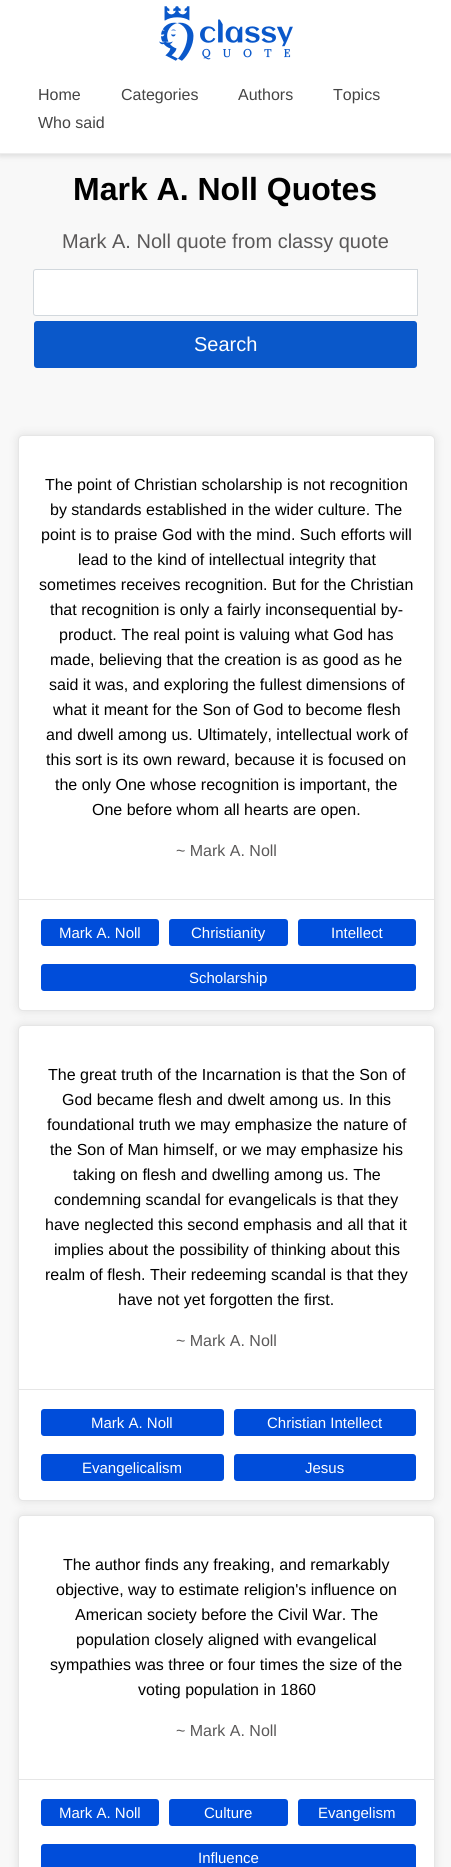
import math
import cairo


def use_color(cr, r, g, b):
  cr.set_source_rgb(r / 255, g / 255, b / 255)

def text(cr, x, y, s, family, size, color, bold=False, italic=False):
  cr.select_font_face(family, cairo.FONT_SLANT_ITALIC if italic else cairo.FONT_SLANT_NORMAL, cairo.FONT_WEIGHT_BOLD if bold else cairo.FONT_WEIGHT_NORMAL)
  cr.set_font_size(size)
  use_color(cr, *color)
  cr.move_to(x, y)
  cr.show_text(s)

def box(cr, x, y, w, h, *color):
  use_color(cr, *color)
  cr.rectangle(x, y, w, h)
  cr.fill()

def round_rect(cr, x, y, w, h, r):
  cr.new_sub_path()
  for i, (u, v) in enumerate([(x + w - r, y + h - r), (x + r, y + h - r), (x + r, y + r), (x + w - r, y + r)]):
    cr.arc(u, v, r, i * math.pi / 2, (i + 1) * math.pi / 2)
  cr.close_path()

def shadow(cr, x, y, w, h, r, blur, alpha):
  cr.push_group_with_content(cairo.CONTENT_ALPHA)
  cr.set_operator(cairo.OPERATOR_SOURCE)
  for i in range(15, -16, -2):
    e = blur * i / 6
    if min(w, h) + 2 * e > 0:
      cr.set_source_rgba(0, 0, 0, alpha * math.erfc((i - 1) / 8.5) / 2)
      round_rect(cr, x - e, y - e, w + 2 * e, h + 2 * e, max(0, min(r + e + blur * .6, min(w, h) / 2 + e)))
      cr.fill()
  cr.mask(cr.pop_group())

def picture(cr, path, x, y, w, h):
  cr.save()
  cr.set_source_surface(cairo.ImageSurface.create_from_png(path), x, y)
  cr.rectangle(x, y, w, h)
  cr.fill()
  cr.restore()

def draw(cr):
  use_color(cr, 248, 248, 248)
  cr.paint()
  use_color(cr, 0, 0, 0)
  shadow(cr, 0, 2, 451, 154, 0, 3, 0.12)
  box(cr, 0, 0, 451, 153, 255, 255, 255)
  box(cr, 0, 153, 451, 1, 237, 237, 237)
  picture(cr, "img_01.png", 159, 6, 134, 55)
  use_color(cr, 255, 255, 255)
  cr.new_path()
  cr.move_to(36, 269.5)
  cr.line_to(417.5, 269.5)
  cr.line_to(417.5, 315.5)
  cr.line_to(36, 315.5)
  cr.curve_to(34.5, 315.5, 33.5, 314.5, 33.5, 313)
  cr.line_to(33.5, 272)
  cr.curve_to(33.5, 270.5, 34.5, 269.5, 36, 269.5)
  cr.close_path()
  cr.fill_preserve()
  use_color(cr, 210, 216, 221)
  cr.set_line_width(1)
  cr.stroke()
  use_color(cr, 10, 88, 202)
  round_rect(cr, 34, 321, 383, 47, 3)
  cr.fill()
  use_color(cr, 0, 0, 0)
  shadow(cr, 18, 435, 417, 576, 5, 5, 0.1)
  use_color(cr, 255, 255, 255)
  round_rect(cr, 18, 435, 417, 576, 5)
  cr.fill()
  round_rect(cr, 18.5, 435.5, 416, 575, 4.5)
  cr.set_source_rgba(0, 0, 0, 0.1)
  cr.stroke()
  box(cr, 19, 899, 415, 1, 230, 230, 230)
  use_color(cr, 0, 77, 218)
  round_rect(cr, 41, 919, 118, 27, 3)
  cr.fill()
  round_rect(cr, 169, 919, 119, 27, 3)
  cr.fill()
  round_rect(cr, 298, 919, 118, 27, 3)
  cr.fill()
  round_rect(cr, 41, 964, 375, 27, 3)
  cr.fill()
  use_color(cr, 0, 0, 0)
  shadow(cr, 18, 1025, 417, 476, 5, 5, 0.1)
  use_color(cr, 255, 255, 255)
  round_rect(cr, 18, 1025, 417, 476, 5)
  cr.fill()
  round_rect(cr, 18.5, 1025.5, 416, 475, 4.5)
  cr.set_source_rgba(0, 0, 0, 0.1)
  cr.stroke()
  box(cr, 19, 1389, 415, 1, 230, 230, 230)
  use_color(cr, 0, 77, 218)
  round_rect(cr, 41, 1409, 183, 27, 3)
  cr.fill()
  round_rect(cr, 234, 1409, 182, 27, 3)
  cr.fill()
  round_rect(cr, 41, 1454, 183, 27, 3)
  cr.fill()
  round_rect(cr, 234, 1454, 182, 27, 3)
  cr.fill()
  use_color(cr, 0, 0, 0)
  shadow(cr, 18, 1515, 417, 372, 5, 5, 0.1)
  use_color(cr, 255, 255, 255)
  round_rect(cr, 18, 1515, 417, 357, 5)
  cr.fill()
  round_rect(cr, 18.5, 1515.5, 416, 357, 4.5)
  cr.set_source_rgba(0, 0, 0, 0.1)
  cr.stroke()
  box(cr, 19, 1779, 415, 1, 230, 230, 230)
  use_color(cr, 0, 77, 218)
  round_rect(cr, 41, 1799, 118, 27, 3)
  cr.fill()
  round_rect(cr, 169, 1799, 119, 27, 3)
  cr.fill()
  round_rect(cr, 298, 1799, 118, 27, 3)
  cr.fill()
  round_rect(cr, 41, 1844, 375, 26, 3)
  cr.fill()
  text(cr, 38, 100, "Home", "Liberation Sans", 16, (68, 68, 68))
  text(cr, 121, 100, "Categories", "Liberation Sans", 16, (68, 68, 68))
  text(cr, 238, 100, "Authors", "Liberation Sans", 16, (68, 68, 68))
  text(cr, 333, 100, "Topics", "Liberation Sans", 16, (68, 68, 68))
  text(cr, 38, 128, "Who said", "Liberation Sans", 16, (68, 68, 68))
  text(cr, 73, 200, "Mark A. Noll Quotes", "Liberation Sans", 32, (0, 0, 0), bold=True)
  text(cr, 62, 248, "Mark A. Noll quote from classy quote", "Liberation Sans", 20, (90, 88, 88))
  text(cr, 194, 351, "Search", "Liberation Sans", 20, (255, 255, 255))
  text(cr, 45, 490, "The point of Christian scholarship is not recognition", "Liberation Sans", 16, (0, 0, 0))
  text(cr, 50, 515, "by standards established in the wider culture. The", "Liberation Sans", 16, (0, 0, 0))
  text(cr, 41, 540, "point is to praise God with the mind. Such efforts will", "Liberation Sans", 16, (0, 0, 0))
  text(cr, 78, 565, "lead to the kind of intellectual integrity that", "Liberation Sans", 16, (0, 0, 0))
  text(cr, 39, 590, "sometimes receives recognition. But for the Christian", "Liberation Sans", 16, (0, 0, 0))
  text(cr, 50, 615, "that recognition is only a fairly inconsequential by-", "Liberation Sans", 16, (0, 0, 0))
  text(cr, 59, 640, "product. The real point is valuing what God has", "Liberation Sans", 16, (0, 0, 0))
  text(cr, 50, 665, "made, believing that the creation is as good as he", "Liberation Sans", 16, (0, 0, 0))
  text(cr, 49, 690, "said it was, and exploring the fullest dimensions of", "Liberation Sans", 16, (0, 0, 0))
  text(cr, 53, 715, "what it meant for the Son of God to become flesh", "Liberation Sans", 16, (0, 0, 0))
  text(cr, 46, 740, "and dwell among us. Ultimately, intellectual work of", "Liberation Sans", 16, (0, 0, 0))
  text(cr, 46, 765, "this sort is its own reward, because it is focused on", "Liberation Sans", 16, (0, 0, 0))
  text(cr, 55, 790, "the only One whose recognition is important, the", "Liberation Sans", 16, (0, 0, 0))
  text(cr, 92, 815, "One before whom all hearts are open.", "Liberation Sans", 16, (0, 0, 0))
  text(cr, 176, 856, "~ Mark A. Noll", "Liberation Sans", 16, (90, 88, 88))
  text(cr, 59, 938, "Mark A. Noll", "Liberation Sans", 15, (255, 255, 255))
  text(cr, 191, 938, "Christianity", "Liberation Sans", 15, (255, 255, 255))
  text(cr, 331, 938, "Intellect", "Liberation Sans", 15, (255, 255, 255))
  text(cr, 189, 983, "Scholarship", "Liberation Sans", 15, (255, 255, 255))
  text(cr, 48, 1080, "The great truth of the Incarnation is that the Son of", "Liberation Sans", 16, (0, 0, 0))
  text(cr, 62, 1105, "God became flesh and dwelt among us. In this", "Liberation Sans", 16, (0, 0, 0))
  text(cr, 47, 1130, "foundational truth we may emphasize the nature of", "Liberation Sans", 16, (0, 0, 0))
  text(cr, 50, 1155, "the Son of Man himself, or we may emphasize his", "Liberation Sans", 16, (0, 0, 0))
  text(cr, 73, 1180, "taking on flesh and dwelling among us. The", "Liberation Sans", 16, (0, 0, 0))
  text(cr, 54, 1205, "condemning scandal for evangelicals is that they", "Liberation Sans", 16, (0, 0, 0))
  text(cr, 45, 1230, "have neglected this second emphasis and all that it", "Liberation Sans", 16, (0, 0, 0))
  text(cr, 54, 1255, "implies about the possibility of thinking about this", "Liberation Sans", 16, (0, 0, 0))
  text(cr, 45, 1280, "realm of flesh. Their redeeming scandal is that they", "Liberation Sans", 16, (0, 0, 0))
  text(cr, 118, 1305, "have not yet forgotten the first.", "Liberation Sans", 16, (0, 0, 0))
  text(cr, 176, 1346, "~ Mark A. Noll", "Liberation Sans", 16, (90, 88, 88))
  text(cr, 91, 1428, "Mark A. Noll", "Liberation Sans", 15, (255, 255, 255))
  text(cr, 267, 1428, "Christian Intellect", "Liberation Sans", 15, (255, 255, 255))
  text(cr, 82, 1473, "Evangelicalism", "Liberation Sans", 15, (255, 255, 255))
  text(cr, 305, 1473, "Jesus", "Liberation Sans", 15, (255, 255, 255))
  text(cr, 63, 1570, "The author finds any freaking, and remarkably", "Liberation Sans", 16, (0, 0, 0))
  text(cr, 56, 1595, "objective, way to estimate religion's influence on", "Liberation Sans", 16, (0, 0, 0))
  text(cr, 75, 1620, "American society before the Civil War. The", "Liberation Sans", 16, (0, 0, 0))
  text(cr, 76, 1645, "population closely aligned with evangelical", "Liberation Sans", 16, (0, 0, 0))
  text(cr, 50, 1670, "sympathies was three or four times the size of the", "Liberation Sans", 16, (0, 0, 0))
  text(cr, 138, 1695, "voting population in 1860", "Liberation Sans", 16, (0, 0, 0))
  text(cr, 176, 1736, "~ Mark A. Noll", "Liberation Sans", 16, (90, 88, 88))
  text(cr, 59, 1818, "Mark A. Noll", "Liberation Sans", 15, (255, 255, 255))
  text(cr, 204, 1818, "Culture", "Liberation Sans", 15, (255, 255, 255))
  text(cr, 318, 1818, "Evangelism", "Liberation Sans", 15, (255, 255, 255))
  text(cr, 198, 1863, "Influence", "Liberation Sans", 15, (255, 255, 255))


surface = cairo.ImageSurface(cairo.FORMAT_RGB24, 451, 1867)
cr = cairo.Context(surface)
options = cairo.FontOptions()
options.set_hint_metrics(cairo.HINT_METRICS_OFF)
options.set_hint_style(cairo.HINT_STYLE_NONE)
cr.set_font_options(options)
cr.set_miter_limit(4)
draw(cr)
surface.write_to_png("out.png")
